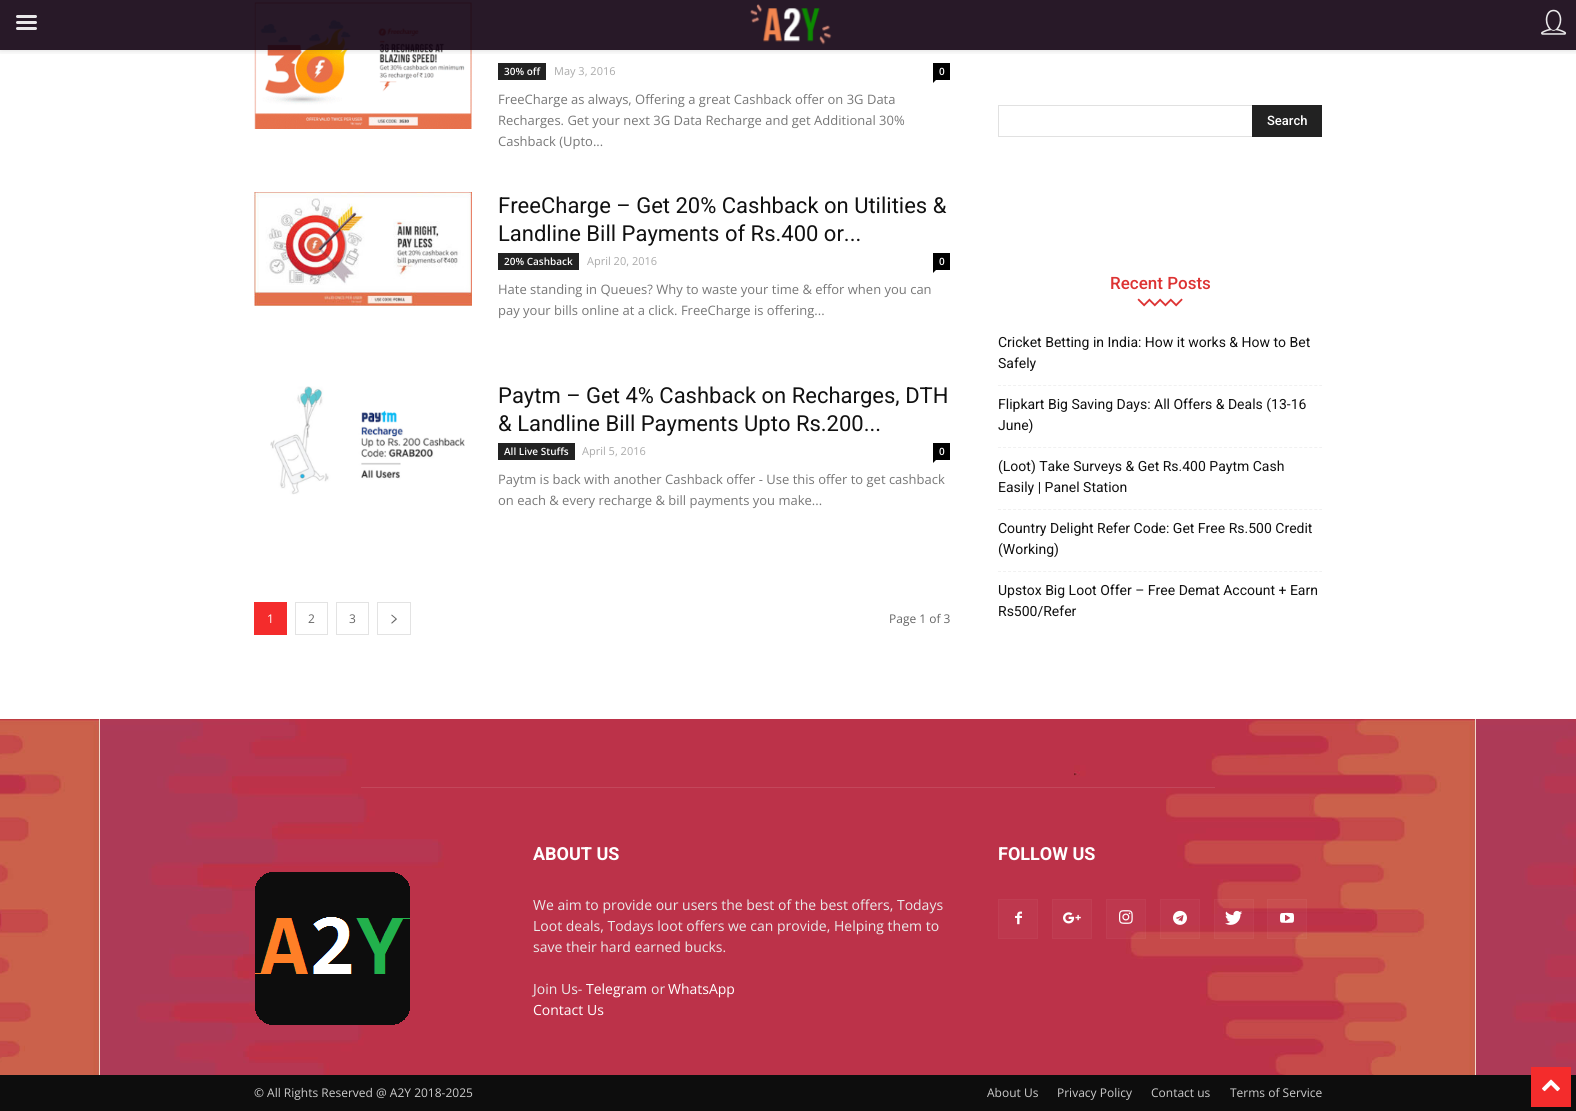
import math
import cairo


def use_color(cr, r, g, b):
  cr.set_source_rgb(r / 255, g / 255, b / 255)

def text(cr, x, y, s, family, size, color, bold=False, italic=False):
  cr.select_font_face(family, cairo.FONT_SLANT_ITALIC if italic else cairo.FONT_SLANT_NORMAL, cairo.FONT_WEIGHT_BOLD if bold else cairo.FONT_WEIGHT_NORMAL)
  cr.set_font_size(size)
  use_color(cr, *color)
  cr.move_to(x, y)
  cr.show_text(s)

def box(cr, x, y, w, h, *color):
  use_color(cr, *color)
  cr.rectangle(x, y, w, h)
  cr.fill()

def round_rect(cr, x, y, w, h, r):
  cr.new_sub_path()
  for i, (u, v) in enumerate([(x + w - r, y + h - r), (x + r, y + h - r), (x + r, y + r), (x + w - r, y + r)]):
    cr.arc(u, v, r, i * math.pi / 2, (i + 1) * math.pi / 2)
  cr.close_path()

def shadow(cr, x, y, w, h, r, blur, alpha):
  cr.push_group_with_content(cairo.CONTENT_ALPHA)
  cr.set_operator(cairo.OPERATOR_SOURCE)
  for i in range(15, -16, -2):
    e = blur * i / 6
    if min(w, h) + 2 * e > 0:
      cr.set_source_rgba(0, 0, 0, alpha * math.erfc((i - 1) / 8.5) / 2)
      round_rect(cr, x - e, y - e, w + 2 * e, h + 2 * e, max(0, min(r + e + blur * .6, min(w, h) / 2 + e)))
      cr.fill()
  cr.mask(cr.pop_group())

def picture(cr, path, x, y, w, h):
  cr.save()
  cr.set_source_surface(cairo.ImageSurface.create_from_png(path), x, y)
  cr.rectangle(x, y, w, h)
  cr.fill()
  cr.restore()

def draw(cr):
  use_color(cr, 255, 255, 255)
  cr.paint()
  picture(cr, "img_04.png", 254, 2, 218, 127)
  cr.save()
  cr.rectangle(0, 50, 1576, 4)
  cr.clip()
  use_color(cr, 0, 0, 0)
  shadow(cr, 0, 0, 1576, 50, 0, 4, 0.15)
  cr.restore()
  cr.set_source_rgba(0.067, 0, 0.067, 0.9)
  cr.rectangle(0, 0, 1576, 50)
  cr.fill()
  picture(cr, "img_01.png", 16, 15, 21, 15)
  picture(cr, "img_02.png", 750, 4, 82, 41)
  picture(cr, "img_03.png", 1541, 9, 26, 26)
  box(cr, 498, 63, 48, 17, 34, 34, 34)
  box(cr, 933, 63, 17, 17, 0, 0, 0)
  cr.new_path()
  cr.move_to(933, 80)
  cr.line_to(936, 80)
  cr.line_to(933, 83)
  cr.close_path()
  cr.fill()
  picture(cr, "img_05.png", 254, 192, 218, 114)
  box(cr, 498, 253, 81, 17, 34, 34, 34)
  box(cr, 933, 253, 17, 17, 0, 0, 0)
  cr.new_path()
  cr.move_to(933, 270)
  cr.line_to(936, 270)
  cr.line_to(933, 273)
  cr.close_path()
  cr.fill()
  picture(cr, "img_06.png", 270, 386, 195, 109)
  box(cr, 498, 443, 77, 17, 34, 34, 34)
  box(cr, 933, 443, 17, 17, 0, 0, 0)
  cr.new_path()
  cr.move_to(933, 460)
  cr.line_to(936, 460)
  cr.line_to(933, 463)
  cr.close_path()
  cr.fill()
  box(cr, 254, 602, 33, 33, 244, 44, 44)
  cr.rectangle(295.5, 602.5, 32, 32)
  use_color(cr, 227, 227, 227)
  cr.set_line_width(1)
  cr.stroke()
  cr.rectangle(336.5, 602.5, 32, 32)
  cr.stroke()
  cr.rectangle(377.5, 602.5, 33, 32)
  cr.stroke()
  picture(cr, "img_07.png", 391, 614, 6, 10)
  box(cr, 998, 105, 254, 1, 225, 225, 225)
  box(cr, 998, 136, 254, 1, 225, 225, 225)
  box(cr, 998, 105, 1, 32, 225, 225, 225)
  box(cr, 1252, 105, 70, 32, 34, 34, 34)
  picture(cr, "img_08.png", 1137, 298, 46, 9)
  cr.new_path()
  cr.move_to(998, 385.5)
  cr.line_to(1322, 385.5)
  use_color(cr, 241, 241, 241)
  cr.set_dash([3, 2.02])
  cr.stroke()
  cr.new_path()
  cr.move_to(998, 447.5)
  cr.line_to(1322, 447.5)
  cr.stroke()
  cr.new_path()
  cr.move_to(998, 509.5)
  cr.line_to(1322, 509.5)
  cr.stroke()
  cr.new_path()
  cr.move_to(998, 571.5)
  cr.line_to(1322, 571.5)
  cr.stroke()
  picture(cr, "img_09.png", 0, 719, 1576, 356)
  box(cr, 361, 787, 854, 1, 195, 71, 91)
  box(cr, 999, 900, 38, 38, 190, 56, 78)
  picture(cr, "img_10.png", 1015, 911, 7, 14)
  cr.rectangle(998.5, 899.5, 39, 39)
  use_color(cr, 192, 62, 83)
  cr.set_dash([])
  cr.stroke()
  box(cr, 1053, 900, 38, 38, 190, 56, 78)
  picture(cr, "img_11.png", 1063, 912, 18, 12)
  cr.rectangle(1052.5, 899.5, 39, 39)
  use_color(cr, 192, 62, 83)
  cr.stroke()
  cr.set_source_rgba(1, 1, 1, 0.03)
  cr.rectangle(1106, 899, 40, 40)
  cr.fill()
  picture(cr, "img_12.png", 1119, 910, 14, 14)
  cr.rectangle(1106.5, 899.5, 39, 39)
  cr.stroke()
  cr.rectangle(1160, 899, 40, 40)
  cr.fill()
  picture(cr, "img_13.png", 1173, 910, 14, 15)
  cr.rectangle(1160.5, 899.5, 39, 39)
  cr.stroke()
  cr.rectangle(1214, 899, 40, 40)
  cr.fill()
  picture(cr, "img_14.png", 1225, 910, 18, 15)
  cr.rectangle(1214.5, 899.5, 39, 39)
  cr.stroke()
  cr.rectangle(1267, 899, 40, 40)
  cr.fill()
  picture(cr, "img_15.png", 1280, 912, 14, 11)
  cr.rectangle(1267.5, 899.5, 39, 39)
  cr.stroke()
  picture(cr, "img_16.png", 255, 872, 155, 153)
  box(cr, 0, 1075, 1576, 36, 13, 13, 13)
  box(cr, 1531, 1067, 40, 40, 244, 44, 44)
  picture(cr, "img_17.png", 1542, 1079, 18, 13)
  text(cr, 504, 75, "30% off", "Open Sans SemiBold", 10, (255, 255, 255))
  text(cr, 554, 75, "May 3, 2016", "Open Sans", 11, (170, 170, 170))
  text(cr, 939, 75, "0", "Open Sans SemiBold", 10, (255, 255, 255))
  text(cr, 498, 104, "FreeCharge as always, Offering a great Cashback offer on 3G Data", "Open Sans", 13, (119, 119, 119))
  text(cr, 498, 125, "Recharges. Get your next 3G Data Recharge and get Additional 30%", "Open Sans", 13, (119, 119, 119))
  text(cr, 498, 146, "Cashback (Upto...", "Open Sans", 13, (119, 119, 119))
  text(cr, 498, 213, "FreeCharge – Get 20% Cashback on Utilities &", "Roboto", 22, (17, 17, 17))
  text(cr, 498, 241, "Landline Bill Payments of Rs.400 or...", "Roboto", 22, (17, 17, 17))
  text(cr, 504, 265, "20% Cashback", "Open Sans SemiBold", 10, (255, 255, 255))
  text(cr, 587, 265, "April 20, 2016", "Open Sans", 11, (170, 170, 170))
  text(cr, 939, 265, "0", "Open Sans SemiBold", 10, (255, 255, 255))
  text(cr, 498, 294, "Hate standing in Queues? Why to waste your time & effor when you can", "Open Sans", 13, (119, 119, 119))
  text(cr, 498, 315, "pay your bills online at a click. FreeCharge is offering...", "Open Sans", 13, (119, 119, 119))
  text(cr, 498, 403, "Paytm – Get 4% Cashback on Recharges, DTH", "Roboto", 22, (17, 17, 17))
  text(cr, 498, 431, "& Landline Bill Payments Upto Rs.200...", "Roboto", 22, (17, 17, 17))
  text(cr, 504, 455, "All Live Stuffs", "Open Sans SemiBold", 10, (255, 255, 255))
  text(cr, 582, 455, "April 5, 2016", "Open Sans", 11, (170, 170, 170))
  text(cr, 939, 455, "0", "Open Sans SemiBold", 10, (255, 255, 255))
  text(cr, 498, 484, "Paytm is back with another Cashback offer - Use this offer to get cashback", "Open Sans", 13, (119, 119, 119))
  text(cr, 498, 505, "on each & every recharge & bill payments you make...", "Open Sans", 13, (119, 119, 119))
  text(cr, 267, 623, "1", "Open Sans", 12, (255, 255, 255))
  text(cr, 308, 623, "2", "Open Sans", 12, (102, 102, 102))
  text(cr, 349, 623, "3", "Open Sans", 12, (102, 102, 102))
  text(cr, 889, 623, "Page 1 of 3", "Open Sans", 12, (102, 102, 102))
  text(cr, 1267, 125, "Search", "Roboto Medium", 13, (255, 255, 255))
  text(cr, 1110, 289, "Recent Posts", "Roboto Medium", 17, (221, 51, 51))
  text(cr, 998, 347, "Cricket Betting in India: How it works & How to Bet", "Roboto", 14, (17, 17, 17))
  text(cr, 998, 368, "Safely", "Roboto", 14, (17, 17, 17))
  text(cr, 998, 409, "Flipkart Big Saving Days: All Offers & Deals (13-16", "Roboto", 14, (17, 17, 17))
  text(cr, 998, 430, "June)", "Roboto", 14, (17, 17, 17))
  text(cr, 998, 471, "(Loot) Take Surveys & Get Rs.400 Paytm Cash", "Roboto", 14, (17, 17, 17))
  text(cr, 998, 492, "Easily | Panel Station", "Roboto", 14, (17, 17, 17))
  text(cr, 998, 533, "Country Delight Refer Code: Get Free Rs.500 Credit", "Roboto", 14, (17, 17, 17))
  text(cr, 998, 554, "(Working)", "Roboto", 14, (17, 17, 17))
  text(cr, 998, 595, "Upstox Big Loot Offer – Free Demat Account + Earn", "Roboto", 14, (17, 17, 17))
  text(cr, 998, 616, "Rs500/Refer", "Roboto", 14, (17, 17, 17))
  text(cr, 533, 860, "ABOUT US", "Roboto", 18, (255, 255, 255), bold=True)
  text(cr, 533, 910, "We aim to provide our users the best of the best offers, Todays", "Open Sans", 14, (234, 234, 234))
  text(cr, 533, 931, "Loot deals, Todays loot offers we can provide, Helping them to", "Open Sans", 14, (234, 234, 234))
  text(cr, 533, 952, "save their hard earned bucks.", "Open Sans", 14, (234, 234, 234))
  text(cr, 533, 994, "Join Us-", "Open Sans", 14, (234, 234, 234))
  text(cr, 586, 994, "Telegram", "Open Sans", 14, (255, 255, 255))
  text(cr, 651, 994, "or", "Open Sans", 14, (234, 234, 234))
  text(cr, 668, 994, "WhatsApp", "Open Sans", 14, (255, 255, 255))
  text(cr, 533, 1015, "Contact Us", "Open Sans", 14, (255, 255, 255))
  text(cr, 998, 860, "FOLLOW US", "Roboto", 18, (255, 255, 255), bold=True)
  text(cr, 254, 1097, "© All Rights Reserved @ A2Y 2018-2025", "Open Sans", 12, (204, 204, 204))
  text(cr, 987, 1097, "About Us", "Open Sans", 12, (204, 204, 204))
  text(cr, 1057, 1097, "Privacy Policy", "Open Sans", 12, (204, 204, 204))
  text(cr, 1151, 1097, "Contact us", "Open Sans", 12, (204, 204, 204))
  text(cr, 1230, 1097, "Terms of Service", "Open Sans", 12, (204, 204, 204))


surface = cairo.ImageSurface(cairo.FORMAT_RGB24, 1576, 1111)
cr = cairo.Context(surface)
options = cairo.FontOptions()
options.set_hint_metrics(cairo.HINT_METRICS_OFF)
options.set_hint_style(cairo.HINT_STYLE_NONE)
cr.set_font_options(options)
cr.set_miter_limit(4)
draw(cr)
surface.write_to_png("out.png")
